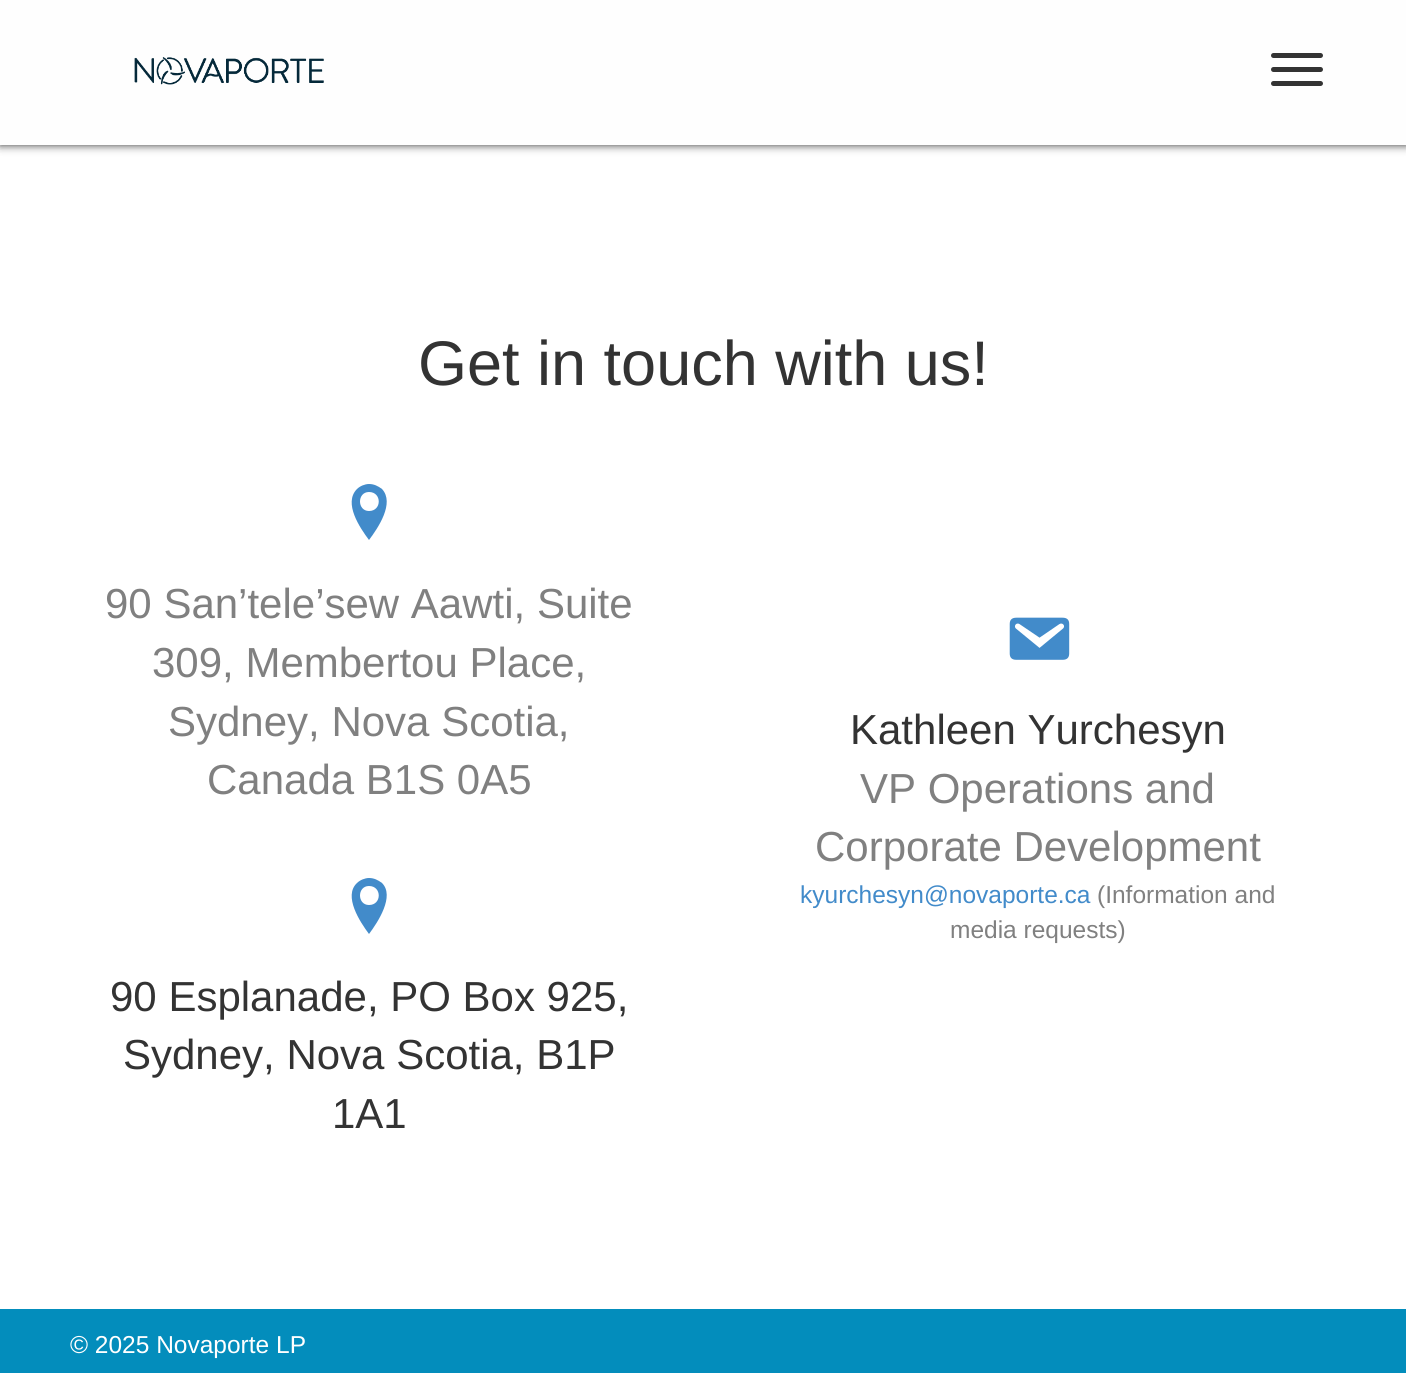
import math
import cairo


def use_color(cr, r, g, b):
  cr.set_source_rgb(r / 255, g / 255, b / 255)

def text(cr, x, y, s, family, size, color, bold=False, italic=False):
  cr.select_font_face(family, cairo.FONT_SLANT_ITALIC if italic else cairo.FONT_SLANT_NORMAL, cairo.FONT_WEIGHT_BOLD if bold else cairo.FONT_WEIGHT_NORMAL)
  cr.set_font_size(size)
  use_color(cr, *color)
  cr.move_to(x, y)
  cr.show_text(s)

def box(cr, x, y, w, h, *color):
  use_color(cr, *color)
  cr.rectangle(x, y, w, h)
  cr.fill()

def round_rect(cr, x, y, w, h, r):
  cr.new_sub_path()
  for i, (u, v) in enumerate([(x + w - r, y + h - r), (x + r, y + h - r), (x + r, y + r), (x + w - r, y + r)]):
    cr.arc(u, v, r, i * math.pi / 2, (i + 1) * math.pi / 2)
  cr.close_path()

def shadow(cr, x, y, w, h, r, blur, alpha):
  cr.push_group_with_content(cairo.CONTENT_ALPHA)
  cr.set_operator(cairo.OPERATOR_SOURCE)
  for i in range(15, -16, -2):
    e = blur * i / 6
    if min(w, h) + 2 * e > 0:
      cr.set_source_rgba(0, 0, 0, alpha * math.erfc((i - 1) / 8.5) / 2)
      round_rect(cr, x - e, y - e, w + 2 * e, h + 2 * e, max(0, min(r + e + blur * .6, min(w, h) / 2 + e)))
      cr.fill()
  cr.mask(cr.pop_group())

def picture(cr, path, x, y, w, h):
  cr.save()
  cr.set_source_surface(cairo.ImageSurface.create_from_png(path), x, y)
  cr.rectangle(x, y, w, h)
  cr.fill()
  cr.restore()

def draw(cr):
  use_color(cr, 255, 255, 255)
  cr.paint()
  use_color(cr, 51, 51, 51)
  shadow(cr, 0, -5, 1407, 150, 0, 4.5, 1)
  box(cr, 0, 0, 1406, 145, 254, 254, 254)
  picture(cr, "img_01.png", 134, 57, 190, 28)
  use_color(cr, 51, 51, 51)
  round_rect(cr, 1271, 67, 52, 5, 2.5)
  cr.fill()
  round_rect(cr, 1271, 53, 52, 5, 2.5)
  cr.fill()
  round_rect(cr, 1271, 81, 52, 5, 2.5)
  cr.fill()
  use_color(cr, 66, 139, 202)
  cr.new_path()
  cr.move_to(369, 484)
  cr.curve_to(365, 484, 360, 486, 357, 489)
  cr.curve_to(343, 503, 360, 528, 369, 540)
  cr.curve_to(378, 528, 395, 503, 382, 489)
  cr.curve_to(378, 486, 374, 484, 369, 484)
  cr.close_path()
  cr.move_to(369, 511)
  cr.curve_to(357, 511, 357, 492, 369, 492)
  cr.curve_to(382, 492, 382, 511, 369, 511)
  cr.close_path()
  cr.fill()
  cr.new_path()
  cr.move_to(369, 878)
  cr.curve_to(365, 878, 360, 880, 357, 883)
  cr.curve_to(343, 896, 360, 922, 369, 934)
  cr.curve_to(378, 922, 395, 896, 382, 883)
  cr.curve_to(378, 880, 374, 878, 369, 878)
  cr.close_path()
  cr.move_to(369, 905)
  cr.curve_to(357, 905, 357, 886, 369, 886)
  cr.curve_to(382, 886, 382, 905, 369, 905)
  cr.close_path()
  cr.fill()
  picture(cr, "img_02.png", 1009, 617, 61, 43)
  box(cr, 0, 1309, 1406, 64, 3, 141, 188)
  text(cr, 418, 385, "Get in touch with us!", "Liberation Sans", 63, (51, 51, 51))
  text(cr, 105, 618, "90 San’tele’sew Aawti, Suite", "Liberation Sans", 42, (128, 128, 128))
  text(cr, 152, 677, "309, Membertou Place,", "Liberation Sans", 42, (128, 128, 128))
  text(cr, 168, 736, "Sydney, Nova Scotia,", "Liberation Sans", 42, (128, 128, 128))
  text(cr, 207, 794, "Canada B1S 0A5", "Liberation Sans", 42, (128, 128, 128))
  text(cr, 110, 1011, "90 Esplanade, PO Box 925,", "Liberation Sans", 42, (51, 51, 51))
  text(cr, 123, 1069, "Sydney, Nova Scotia, B1P", "Liberation Sans", 42, (51, 51, 51))
  text(cr, 332, 1128, "1A1", "Liberation Sans", 42, (51, 51, 51))
  text(cr, 850, 744, "Kathleen Yurchesyn", "Liberation Sans", 42, (51, 51, 51))
  text(cr, 860, 803, "VP Operations and", "Liberation Sans", 42, (128, 128, 128))
  text(cr, 815, 861, "Corporate Development", "Liberation Sans", 42, (128, 128, 128))
  text(cr, 800, 903, "kyurchesyn@novaporte.ca", "Liberation Sans", 24.5, (66, 139, 202))
  text(cr, 1097, 903, "(Information and", "Liberation Sans", 24.5, (128, 128, 128))
  text(cr, 950, 938, "media requests)", "Liberation Sans", 24.5, (128, 128, 128))
  text(cr, 70, 1353, "© 2025 Novaporte LP", "Liberation Sans", 24.5, (255, 255, 255))


surface = cairo.ImageSurface(cairo.FORMAT_RGB24, 1406, 1373)
cr = cairo.Context(surface)
options = cairo.FontOptions()
options.set_hint_metrics(cairo.HINT_METRICS_OFF)
options.set_hint_style(cairo.HINT_STYLE_NONE)
cr.set_font_options(options)
cr.set_miter_limit(4)
draw(cr)
surface.write_to_png("out.png")
